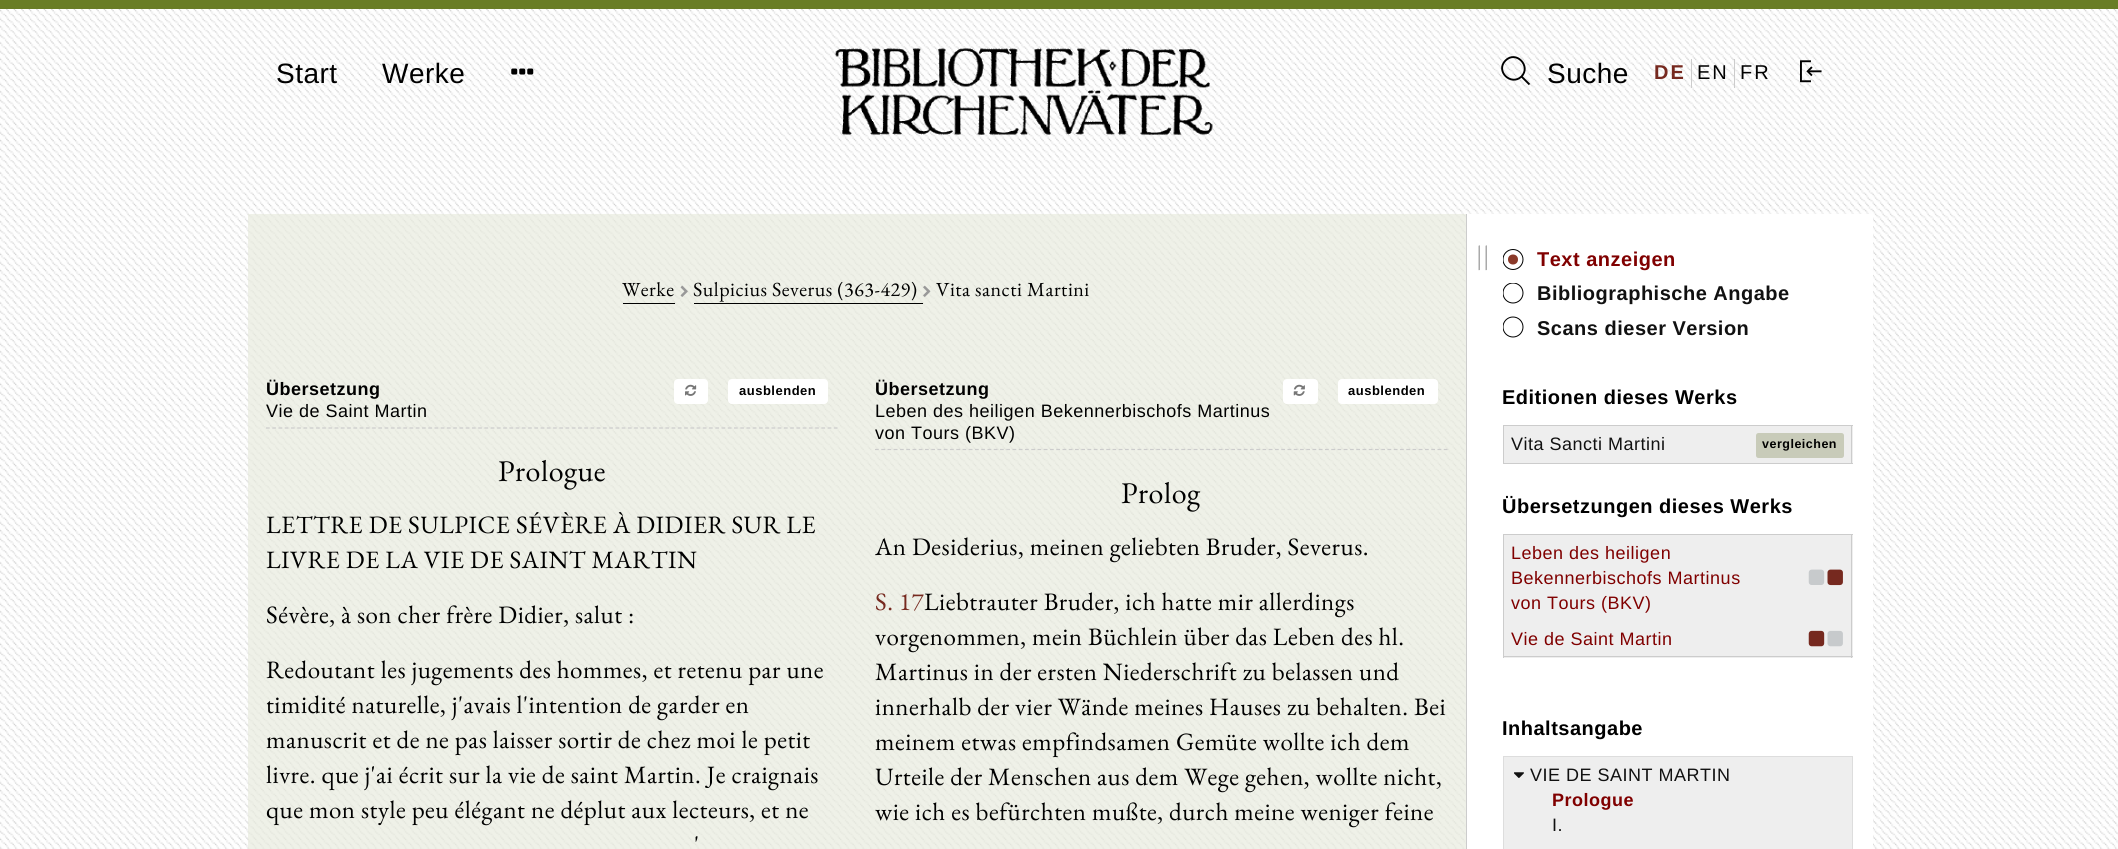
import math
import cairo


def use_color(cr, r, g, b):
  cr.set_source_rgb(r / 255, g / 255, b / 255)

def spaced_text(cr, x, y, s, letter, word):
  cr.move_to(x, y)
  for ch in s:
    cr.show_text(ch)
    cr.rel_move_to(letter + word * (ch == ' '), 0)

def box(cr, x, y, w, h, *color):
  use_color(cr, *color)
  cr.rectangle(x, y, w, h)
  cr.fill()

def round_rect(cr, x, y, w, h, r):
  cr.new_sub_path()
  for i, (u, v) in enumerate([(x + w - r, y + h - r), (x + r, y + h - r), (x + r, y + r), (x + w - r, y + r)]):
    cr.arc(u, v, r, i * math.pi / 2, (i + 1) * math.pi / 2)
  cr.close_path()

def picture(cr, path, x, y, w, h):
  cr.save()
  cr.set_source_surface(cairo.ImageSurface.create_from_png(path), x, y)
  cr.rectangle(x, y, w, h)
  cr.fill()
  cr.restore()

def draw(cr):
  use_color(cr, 255, 255, 255)
  cr.paint()
  picture(cr, "img_01.png", 0, 9, 2118, 840)
  box(cr, 0, 0, 2118, 9, 105, 125, 37)
  picture(cr, "img_02.png", 511, 68, 23, 7)
  picture(cr, "img_03.png", 834, 48, 379, 87)
  cr.new_path()
  cr.move_to(1505.5, 60.5)
  cr.curve_to(1516, 50, 1531.5, 66, 1521.5, 76.5)
  cr.curve_to(1511, 86.5, 1495, 71, 1505.5, 60.5)
  cr.close_path()
  cr.move_to(1522, 77)
  cr.line_to(1529.5, 84.5)
  use_color(cr, 0, 0, 0)
  cr.set_line_width(1.9)
  cr.stroke()
  box(cr, 1691, 59, 1, 29, 204, 204, 204)
  box(cr, 1734, 59, 1, 29, 204, 204, 204)
  picture(cr, "img_04.png", 1800, 60, 22, 23)
  cr.set_source_rgba(0.914, 0.925, 0.871, 0.7)
  cr.rectangle(248, 214, 1218, 635)
  cr.fill()
  box(cr, 623, 303, 52, 1, 0, 0, 0)
  picture(cr, "img_05.png", 680, 285, 8, 12)
  box(cr, 694, 303, 229, 1, 0, 0, 0)
  picture(cr, "img_06.png", 923, 285, 8, 12)
  cr.new_path()
  cr.move_to(266, 428)
  cr.line_to(837.5, 428)
  use_color(cr, 204, 204, 204)
  cr.set_line_width(1.2)
  cr.set_dash([3.75, 2.49])
  cr.stroke()
  use_color(cr, 255, 255, 255)
  round_rect(cr, 674, 379, 34, 25, 4)
  cr.fill()
  picture(cr, "img_07.png", 685, 384, 12, 12)
  round_rect(cr, 728, 379, 100, 25, 4)
  cr.fill()
  cr.new_path()
  cr.move_to(875, 449.5)
  cr.line_to(1447.5, 449.5)
  use_color(cr, 204, 204, 204)
  cr.set_dash([3.75, 2.5])
  cr.stroke()
  use_color(cr, 255, 255, 255)
  round_rect(cr, 1283, 379, 35, 25, 4)
  cr.fill()
  picture(cr, "img_08.png", 1293, 384, 12, 12)
  round_rect(cr, 1338, 379, 100, 25, 4)
  cr.fill()
  box(cr, 1467, 214, 406, 635, 255, 255, 255)
  box(cr, 1466, 214, 1, 635, 204, 204, 204)
  cr.save()
  cr.rectangle(1503, 249, 21, 21)
  cr.clip()
  cr.arc(1513, 259.5, 10, 0, 2 * math.pi)
  use_color(cr, 0, 0, 0)
  cr.set_line_width(1)
  cr.set_dash([])
  cr.stroke()
  cr.restore()
  use_color(cr, 138, 57, 41)
  cr.arc(1513, 259.5, 5, 0, 2 * math.pi)
  cr.fill()
  cr.save()
  cr.rectangle(1503, 283, 21, 21)
  cr.clip()
  cr.arc(1513, 293, 10, 0, 2 * math.pi)
  use_color(cr, 0, 0, 0)
  cr.set_line_width(1)
  cr.set_dash([])
  cr.stroke()
  cr.restore()
  cr.save()
  cr.rectangle(1503, 316, 21, 22)
  cr.clip()
  cr.arc(1513, 327, 10, 0, 2 * math.pi)
  use_color(cr, 0, 0, 0)
  cr.set_line_width(1)
  cr.set_dash([])
  cr.stroke()
  cr.restore()
  box(cr, 1504, 426, 349, 37, 238, 238, 238)
  box(cr, 1503, 425, 350, 1, 204, 204, 204)
  box(cr, 1851, 425, 1, 39, 204, 204, 204)
  box(cr, 1503, 463, 350, 1, 204, 204, 204)
  box(cr, 1503, 425, 1, 39, 204, 204, 204)
  use_color(cr, 200, 203, 185)
  round_rect(cr, 1756, 433, 88, 25, 2.5)
  cr.fill()
  box(cr, 1504, 535, 349, 123, 238, 238, 238)
  box(cr, 1503, 534, 350, 1, 204, 204, 204)
  box(cr, 1851, 534, 1, 124, 204, 204, 204)
  box(cr, 1503, 656, 350, 1, 204, 204, 204)
  box(cr, 1503, 534, 1, 124, 204, 204, 204)
  picture(cr, "img_09.png", 1808, 569, 17, 16)
  picture(cr, "img_10.png", 1827, 569, 16, 17)
  picture(cr, "img_11.png", 1808, 630, 17, 17)
  picture(cr, "img_12.png", 1827, 630, 16, 17)
  use_color(cr, 238, 238, 238)
  cr.rectangle(1503.5, 756.5, 349, 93)
  cr.fill_preserve()
  use_color(cr, 221, 221, 221)
  cr.set_line_width(1)
  cr.set_dash([])
  cr.stroke()
  picture(cr, "img_13.png", 1514, 772, 10, 6)
  cr.select_font_face("Liberation Sans")
  cr.set_font_size(28)
  use_color(cr, 0, 0, 0)
  spaced_text(cr, 276, 83, "Start", 0.5, 0)
  spaced_text(cr, 382, 83, "Werke", 0.5, 0)
  spaced_text(cr, 1547, 83, "Suche", 0.5, 0)
  cr.select_font_face("Liberation Sans", cairo.FONT_SLANT_NORMAL, cairo.FONT_WEIGHT_BOLD)
  cr.set_font_size(20)
  use_color(cr, 118, 41, 31)
  spaced_text(cr, 1654, 79, "DE", 2, 0)
  cr.select_font_face("Liberation Sans")
  use_color(cr, 0, 0, 0)
  spaced_text(cr, 1697, 79, "EN", 2, 0)
  spaced_text(cr, 1740, 79, "FR", 2, 0)
  cr.select_font_face("EB Garamond")
  spaced_text(cr, 622, 296, "Werke", 0.5, 0)
  spaced_text(cr, 693, 296, "Sulpicius Severus (363-429)", 0.5, 0)
  spaced_text(cr, 936, 296, "Vita sancti Martini", 0.5, 0)
  cr.select_font_face("Liberation Sans", cairo.FONT_SLANT_NORMAL, cairo.FONT_WEIGHT_BOLD)
  cr.set_font_size(18)
  spaced_text(cr, 266, 395, "Übersetzung", 0.5, 0)
  cr.set_font_size(13)
  spaced_text(cr, 739, 395, "ausblenden", 0.5, 0)
  cr.select_font_face("Liberation Sans")
  cr.set_font_size(18)
  spaced_text(cr, 266, 417, "Vie de Saint Martin", 0.5, 0)
  cr.select_font_face("EB Garamond")
  cr.set_font_size(30)
  spaced_text(cr, 498, 481, "Prologue", 0.5, 0)
  cr.set_font_size(25)
  spaced_text(cr, 266, 533, "LETTRE DE SULPICE SÉVÈRE À DIDIER SUR LE", 0.5, 0)
  spaced_text(cr, 266, 568, "LIVRE DE LA VIE DE SAINT MARTIN", 0.5, 0)
  spaced_text(cr, 266, 623, "Sévère, à son cher frère Didier, salut :", 0.5, 0)
  spaced_text(cr, 266, 678, "Redoutant les jugements des hommes, et retenu par une", 0.5, 0)
  spaced_text(cr, 266, 713, "timidité naturelle, j'avais l'intention de garder en", 0.5, 0)
  spaced_text(cr, 266, 748, "manuscrit et de ne pas laisser sortir de chez moi le petit", 0.5, 0)
  spaced_text(cr, 266, 783, "livre. que j'ai écrit sur la vie de saint Martin. Je craignais", 0.5, 0)
  spaced_text(cr, 266, 818, "que mon style peu élégant ne déplut aux lecteurs, et ne", 0.5, 0)
  spaced_text(cr, 694, 853, "'", 0.5, 0)
  cr.select_font_face("Liberation Sans", cairo.FONT_SLANT_NORMAL, cairo.FONT_WEIGHT_BOLD)
  cr.set_font_size(18)
  spaced_text(cr, 875, 395, "Übersetzung", 0.5, 0)
  cr.set_font_size(13)
  spaced_text(cr, 1348, 395, "ausblenden", 0.5, 0)
  cr.select_font_face("Liberation Sans")
  cr.set_font_size(18)
  spaced_text(cr, 875, 417, "Leben des heiligen Bekennerbischofs Martinus", 0.5, 0)
  spaced_text(cr, 875, 439, "von Tours (BKV)", 0.5, 0)
  cr.select_font_face("EB Garamond")
  cr.set_font_size(30)
  spaced_text(cr, 1121, 503, "Prolog", 0.5, 0)
  cr.set_font_size(25)
  spaced_text(cr, 875, 555, "An Desiderius, meinen geliebten Bruder, Severus.", 0.5, 0)
  use_color(cr, 118, 41, 31)
  spaced_text(cr, 875, 610, "S. 17", 0.5, 0)
  use_color(cr, 0, 0, 0)
  spaced_text(cr, 924, 610, "Liebtrauter Bruder, ich hatte mir allerdings", 0.5, 0)
  spaced_text(cr, 875, 645, "vorgenommen, mein Büchlein über das Leben des hl.", 0.5, 0)
  spaced_text(cr, 875, 680, "Martinus in der ersten Niederschrift zu belassen und", 0.5, 0)
  spaced_text(cr, 875, 715, "innerhalb der vier Wände meines Hauses zu behalten. Bei", 0.5, 0)
  spaced_text(cr, 875, 750, "meinem etwas empfindsamen Gemüte wollte ich dem", 0.5, 0)
  spaced_text(cr, 875, 785, "Urteile der Menschen aus dem Wege gehen, wollte nicht,", 0.5, 0)
  spaced_text(cr, 875, 820, "wie ich es befürchten mußte, durch meine weniger feine", 0.5, 0)
  use_color(cr, 170, 170, 170)
  spaced_text(cr, 1476, 263, "||", 0.5, 0)
  cr.select_font_face("Liberation Sans", cairo.FONT_SLANT_NORMAL, cairo.FONT_WEIGHT_BOLD)
  cr.set_font_size(20)
  use_color(cr, 128, 0, 0)
  spaced_text(cr, 1537, 266, "Text anzeigen", 0.5, 0)
  use_color(cr, 17, 17, 17)
  spaced_text(cr, 1537, 300, "Bibliographische Angabe", 0.5, 0)
  spaced_text(cr, 1537, 335, "Scans dieser Version", 0.5, 0)
  use_color(cr, 0, 0, 0)
  spaced_text(cr, 1502, 404, "Editionen dieses Werks", 0.5, 0)
  cr.select_font_face("Liberation Sans")
  cr.set_font_size(18)
  use_color(cr, 17, 17, 17)
  spaced_text(cr, 1511, 450, "Vita Sancti Martini", 0.5, 0)
  cr.select_font_face("Liberation Sans", cairo.FONT_SLANT_NORMAL, cairo.FONT_WEIGHT_BOLD)
  cr.set_font_size(12.5)
  use_color(cr, 0, 0, 0)
  spaced_text(cr, 1762, 448, "vergleichen", 0.5, 0)
  cr.set_font_size(20)
  spaced_text(cr, 1502, 513, "Übersetzungen dieses Werks", 0.5, 0)
  cr.select_font_face("Liberation Sans")
  cr.set_font_size(18)
  use_color(cr, 128, 0, 0)
  spaced_text(cr, 1511, 559, "Leben des heiligen", 0.5, 0)
  spaced_text(cr, 1511, 584, "Bekennerbischofs Martinus", 0.5, 0)
  spaced_text(cr, 1511, 609, "von Tours (BKV)", 0.5, 0)
  spaced_text(cr, 1511, 645, "Vie de Saint Martin", 0.5, 0)
  cr.select_font_face("Liberation Sans", cairo.FONT_SLANT_NORMAL, cairo.FONT_WEIGHT_BOLD)
  cr.set_font_size(20)
  use_color(cr, 0, 0, 0)
  spaced_text(cr, 1502, 735, "Inhaltsangabe", 0.5, 0)
  cr.select_font_face("Liberation Sans")
  cr.set_font_size(18)
  use_color(cr, 17, 17, 17)
  spaced_text(cr, 1530, 781, "VIE DE SAINT MARTIN", 0.5, 0)
  cr.select_font_face("Liberation Sans", cairo.FONT_SLANT_NORMAL, cairo.FONT_WEIGHT_BOLD)
  use_color(cr, 128, 0, 0)
  spaced_text(cr, 1552, 806, "Prologue", 0.5, 0)
  cr.select_font_face("Liberation Sans")
  use_color(cr, 17, 17, 17)
  spaced_text(cr, 1552, 831, "I.", 0.5, 0)


surface = cairo.ImageSurface(cairo.FORMAT_RGB24, 2118, 849)
cr = cairo.Context(surface)
options = cairo.FontOptions()
options.set_hint_metrics(cairo.HINT_METRICS_OFF)
options.set_hint_style(cairo.HINT_STYLE_NONE)
cr.set_font_options(options)
cr.set_miter_limit(4)
draw(cr)
surface.write_to_png("out.png")
